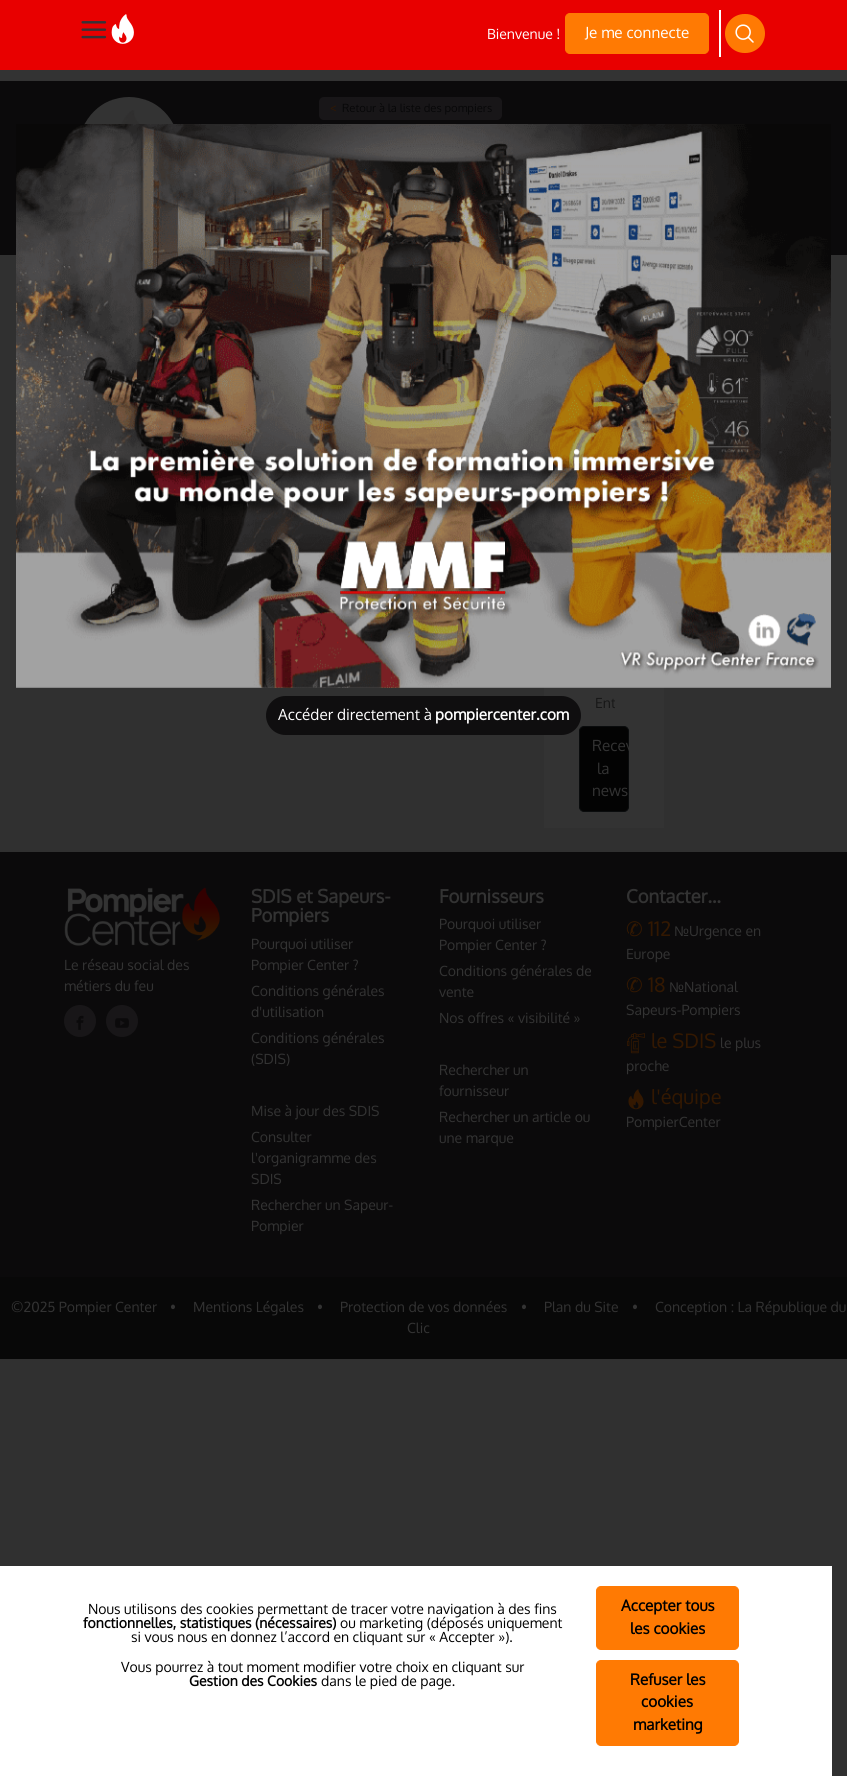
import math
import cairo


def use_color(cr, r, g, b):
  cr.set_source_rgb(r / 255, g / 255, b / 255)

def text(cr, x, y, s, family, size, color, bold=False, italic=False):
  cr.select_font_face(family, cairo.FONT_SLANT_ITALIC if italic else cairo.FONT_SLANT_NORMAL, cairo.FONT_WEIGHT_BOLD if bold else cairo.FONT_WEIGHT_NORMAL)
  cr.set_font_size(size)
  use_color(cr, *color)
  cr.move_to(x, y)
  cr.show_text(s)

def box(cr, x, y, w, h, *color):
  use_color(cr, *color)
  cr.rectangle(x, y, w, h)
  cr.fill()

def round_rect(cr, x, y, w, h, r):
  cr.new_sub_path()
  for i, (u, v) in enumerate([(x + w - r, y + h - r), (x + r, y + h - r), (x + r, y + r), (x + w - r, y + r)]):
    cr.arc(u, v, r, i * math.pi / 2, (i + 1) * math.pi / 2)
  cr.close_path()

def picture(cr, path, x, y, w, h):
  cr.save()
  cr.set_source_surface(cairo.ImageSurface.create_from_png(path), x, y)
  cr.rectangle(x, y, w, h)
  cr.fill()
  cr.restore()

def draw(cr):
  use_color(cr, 48, 48, 48)
  cr.paint()
  box(cr, 0, 0, 847, 70, 232, 0, 0)
  picture(cr, "img_01.png", 81, 21, 26, 18)
  picture(cr, "img_02.png", 111, 14, 23, 30)
  use_color(cr, 255, 122, 3)
  round_rect(cr, 565.5, 13.5, 143, 40, 4.5)
  cr.fill_preserve()
  cr.set_line_width(1)
  cr.stroke()
  box(cr, 719, 10, 2, 47, 255, 255, 255)
  use_color(cr, 255, 122, 3)
  round_rect(cr, 725, 14, 40, 39, 19.5)
  cr.fill()
  picture(cr, "img_03.png", 735, 24, 19, 19)
  box(cr, 0, 70, 847, 11, 51, 51, 51)
  box(cr, 0, 81, 847, 174, 11, 10, 11)
  picture(cr, "img_04.png", 84, 97, 90, 27)
  use_color(cr, 24, 22, 24)
  round_rect(cr, 319, 97, 183, 23, 5)
  cr.fill()
  box(cr, 544, 686, 120, 142, 51, 51, 51)
  picture(cr, "img_05.png", 16, 124, 815, 564)
  use_color(cr, 3, 3, 3)
  round_rect(cr, 579.5, 726.5, 49, 85, 4.5)
  cr.fill_preserve()
  use_color(cr, 10, 12, 13)
  cr.stroke()
  use_color(cr, 15, 14, 15)
  round_rect(cr, 266, 696, 315, 39, 19.5)
  cr.fill()
  box(cr, 0, 852, 847, 425, 11, 10, 11)
  picture(cr, "img_06.png", 64, 887, 156, 59)
  use_color(cr, 24, 22, 24)
  cr.arc(80, 1021, 16, 0, 2 * math.pi)
  cr.fill()
  picture(cr, "img_07.png", 76, 1015, 8, 15)
  cr.arc(122, 1021, 16, 0, 2 * math.pi)
  cr.fill()
  picture(cr, "img_08.png", 115, 1018, 14, 10)
  picture(cr, "img_09.png", 627, 1033, 18, 21)
  picture(cr, "img_10.png", 628, 1089, 16, 21)
  box(cr, 0, 1277, 847, 82, 8, 8, 8)
  box(cr, 0, 1566, 832, 210, 255, 255, 255)
  use_color(cr, 255, 122, 3)
  round_rect(cr, 596.5, 1586.5, 142, 63, 4.5)
  cr.fill_preserve()
  cr.stroke()
  round_rect(cr, 596.5, 1660.5, 142, 85, 4.5)
  cr.fill_preserve()
  cr.stroke()
  text(cr, 487, 39, "Bienvenue !", "Oxygen", 14, (255, 255, 255))
  text(cr, 585, 38, "Je me connecte", "Oxygen", 15.25, (255, 255, 255))
  text(cr, 330, 112, "<", "Oxygen", 11.25, (51, 24, 1))
  text(cr, 342, 112, "Retour à la liste des pompiers", "Oxygen", 11.25, (7, 7, 8))
  text(cr, 278, 720, "Accéder directement à", "Oxygen", 15.25, (255, 255, 255))
  text(cr, 435, 720, "pompiercenter.com", "Oxygen", 15.25, (255, 255, 255), bold=True)
  cr.save()
  cr.rectangle(595, 693, 20, 20)
  cr.clip()
  text(cr, 595, 708, "Ent", "Oxygen", 14, (23, 23, 23))
  cr.restore()
  text(cr, 592, 751, "Recev", "Oxygen", 15.25, (51, 51, 51))
  text(cr, 597, 774, "la", "Oxygen", 15.25, (51, 51, 51))
  text(cr, 592, 796, "news", "Oxygen", 15.25, (51, 51, 51))
  text(cr, 64, 970, "Le réseau social des", "Oxygen", 14, (51, 51, 51))
  text(cr, 64, 991, "métiers du feu", "Oxygen", 14, (51, 51, 51))
  text(cr, 251, 903, "SDIS et Sapeurs-", "Oxygen", 18.5, (51, 51, 51), bold=True)
  text(cr, 251, 922, "Pompiers", "Oxygen", 18.5, (51, 51, 51), bold=True)
  text(cr, 251, 949, "Pourquoi utiliser", "Oxygen", 14, (51, 51, 51))
  text(cr, 251, 970, "Pompier Center ?", "Oxygen", 14, (51, 51, 51))
  text(cr, 251, 996, "Conditions générales", "Oxygen", 14, (51, 51, 51))
  text(cr, 251, 1017, "d'utilisation", "Oxygen", 14, (51, 51, 51))
  text(cr, 251, 1043, "Conditions générales", "Oxygen", 14, (51, 51, 51))
  text(cr, 251, 1064, "(SDIS)", "Oxygen", 14, (51, 51, 51))
  text(cr, 251, 1116, "Mise à jour des SDIS", "Oxygen", 14, (51, 51, 51))
  text(cr, 251, 1142, "Consulter", "Oxygen", 14, (51, 51, 51))
  text(cr, 251, 1163, "l'organigramme des", "Oxygen", 14, (51, 51, 51))
  text(cr, 251, 1184, "SDIS", "Oxygen", 14, (51, 51, 51))
  text(cr, 251, 1210, "Rechercher un Sapeur-", "Oxygen", 14, (51, 51, 51))
  text(cr, 251, 1231, "Pompier", "Oxygen", 14, (51, 51, 51))
  text(cr, 439, 903, "Fournisseurs", "Oxygen", 18.5, (51, 51, 51), bold=True)
  text(cr, 439, 929, "Pourquoi utiliser", "Oxygen", 14, (51, 51, 51))
  text(cr, 439, 950, "Pompier Center ?", "Oxygen", 14, (51, 51, 51))
  text(cr, 439, 976, "Conditions générales de", "Oxygen", 14, (51, 51, 51))
  text(cr, 439, 997, "vente", "Oxygen", 14, (51, 51, 51))
  text(cr, 439, 1023, "Nos offres « visibilité »", "Oxygen", 14, (51, 51, 51))
  text(cr, 439, 1075, "Rechercher un", "Oxygen", 14, (51, 51, 51))
  text(cr, 439, 1096, "fournisseur", "Oxygen", 14, (51, 51, 51))
  text(cr, 439, 1122, "Rechercher un article ou", "Oxygen", 14, (51, 51, 51))
  text(cr, 439, 1143, "une marque", "Oxygen", 14, (51, 51, 51))
  text(cr, 626, 903, "Contacter…", "Oxygen", 18.5, (51, 51, 51), bold=True)
  text(cr, 626, 936, "✆", "DejaVu Sans", 20, (51, 24, 1))
  text(cr, 648, 936, "112", "Oxygen", 20, (51, 24, 1))
  text(cr, 674, 936, "№", "Liberation Sans", 14, (51, 51, 51))
  text(cr, 689, 936, "Urgence en", "Oxygen", 14, (51, 51, 51))
  text(cr, 626, 959, "Europe", "Oxygen", 14, (51, 51, 51))
  text(cr, 626, 992, "✆", "DejaVu Sans", 20, (51, 24, 1))
  text(cr, 648, 992, "18", "Oxygen", 20, (51, 24, 1))
  text(cr, 669, 992, "№", "Liberation Sans", 14, (51, 51, 51))
  text(cr, 684, 992, "National", "Oxygen", 14, (51, 51, 51))
  text(cr, 626, 1015, "Sapeurs-Pompiers", "Oxygen", 14, (51, 51, 51))
  text(cr, 651, 1048, "le SDIS", "Oxygen", 20, (51, 24, 1))
  text(cr, 720, 1048, "le plus", "Oxygen", 14, (51, 51, 51))
  text(cr, 626, 1071, "proche", "Oxygen", 14, (51, 51, 51))
  text(cr, 651, 1104, "l'équipe", "Oxygen", 20, (51, 24, 1))
  text(cr, 626, 1127, "PompierCenter", "Oxygen", 14, (51, 51, 51))
  text(cr, 11, 1312, "©2025 Pompier Center", "Oxygen", 14, (51, 51, 51))
  text(cr, 170, 1312, "•", "Oxygen", 14, (51, 51, 51))
  text(cr, 193, 1312, "Mentions Légales", "Oxygen", 14, (51, 51, 51))
  text(cr, 317, 1312, "•", "Oxygen", 14, (51, 51, 51))
  text(cr, 340, 1312, "Protection de vos données", "Oxygen", 14, (51, 51, 51))
  text(cr, 521, 1312, "•", "Oxygen", 14, (51, 51, 51))
  text(cr, 544, 1312, "Plan du Site", "Oxygen", 14, (51, 51, 51))
  text(cr, 632, 1312, "•", "Oxygen", 14, (51, 51, 51))
  text(cr, 655, 1312, "Conception : La République du", "Oxygen", 14, (51, 51, 51))
  text(cr, 407, 1333, "Clic", "Oxygen", 14, (51, 51, 51))
  text(cr, 88, 1614, "Nous utilisons des cookies permettant de tracer votre navigation à des fins", "Oxygen", 14, (0, 0, 0))
  text(cr, 83, 1628, "fonctionnelles, statistiques (nécessaires)", "Oxygen", 14, (0, 0, 0), bold=True)
  text(cr, 340, 1628, "ou marketing (déposés uniquement", "Oxygen", 14, (0, 0, 0))
  text(cr, 131, 1642, "si vous nous en donnez l’accord en cliquant sur « Accepter »).", "Oxygen", 14, (0, 0, 0))
  text(cr, 121, 1672, "Vous pourrez à tout moment modifier votre choix en cliquant sur", "Oxygen", 14, (0, 0, 0))
  text(cr, 189, 1686, "Gestion des Cookies", "Oxygen", 14, (0, 0, 0), bold=True)
  text(cr, 321, 1686, "dans le pied de page.", "Oxygen", 14, (0, 0, 0))
  text(cr, 621, 1611, "Accepter tous", "Oxygen", 15.25, (0, 0, 0), bold=True)
  text(cr, 630, 1634, "les cookies", "Oxygen", 15.25, (0, 0, 0), bold=True)
  text(cr, 630, 1685, "Refuser les", "Oxygen", 15.25, (0, 0, 0), bold=True)
  text(cr, 641, 1707, "cookies", "Oxygen", 15.25, (0, 0, 0), bold=True)
  text(cr, 633, 1730, "marketing", "Oxygen", 15.25, (0, 0, 0), bold=True)


surface = cairo.ImageSurface(cairo.FORMAT_RGB24, 847, 1776)
cr = cairo.Context(surface)
options = cairo.FontOptions()
options.set_hint_metrics(cairo.HINT_METRICS_OFF)
options.set_hint_style(cairo.HINT_STYLE_NONE)
cr.set_font_options(options)
cr.set_miter_limit(4)
draw(cr)
surface.write_to_png("out.png")
